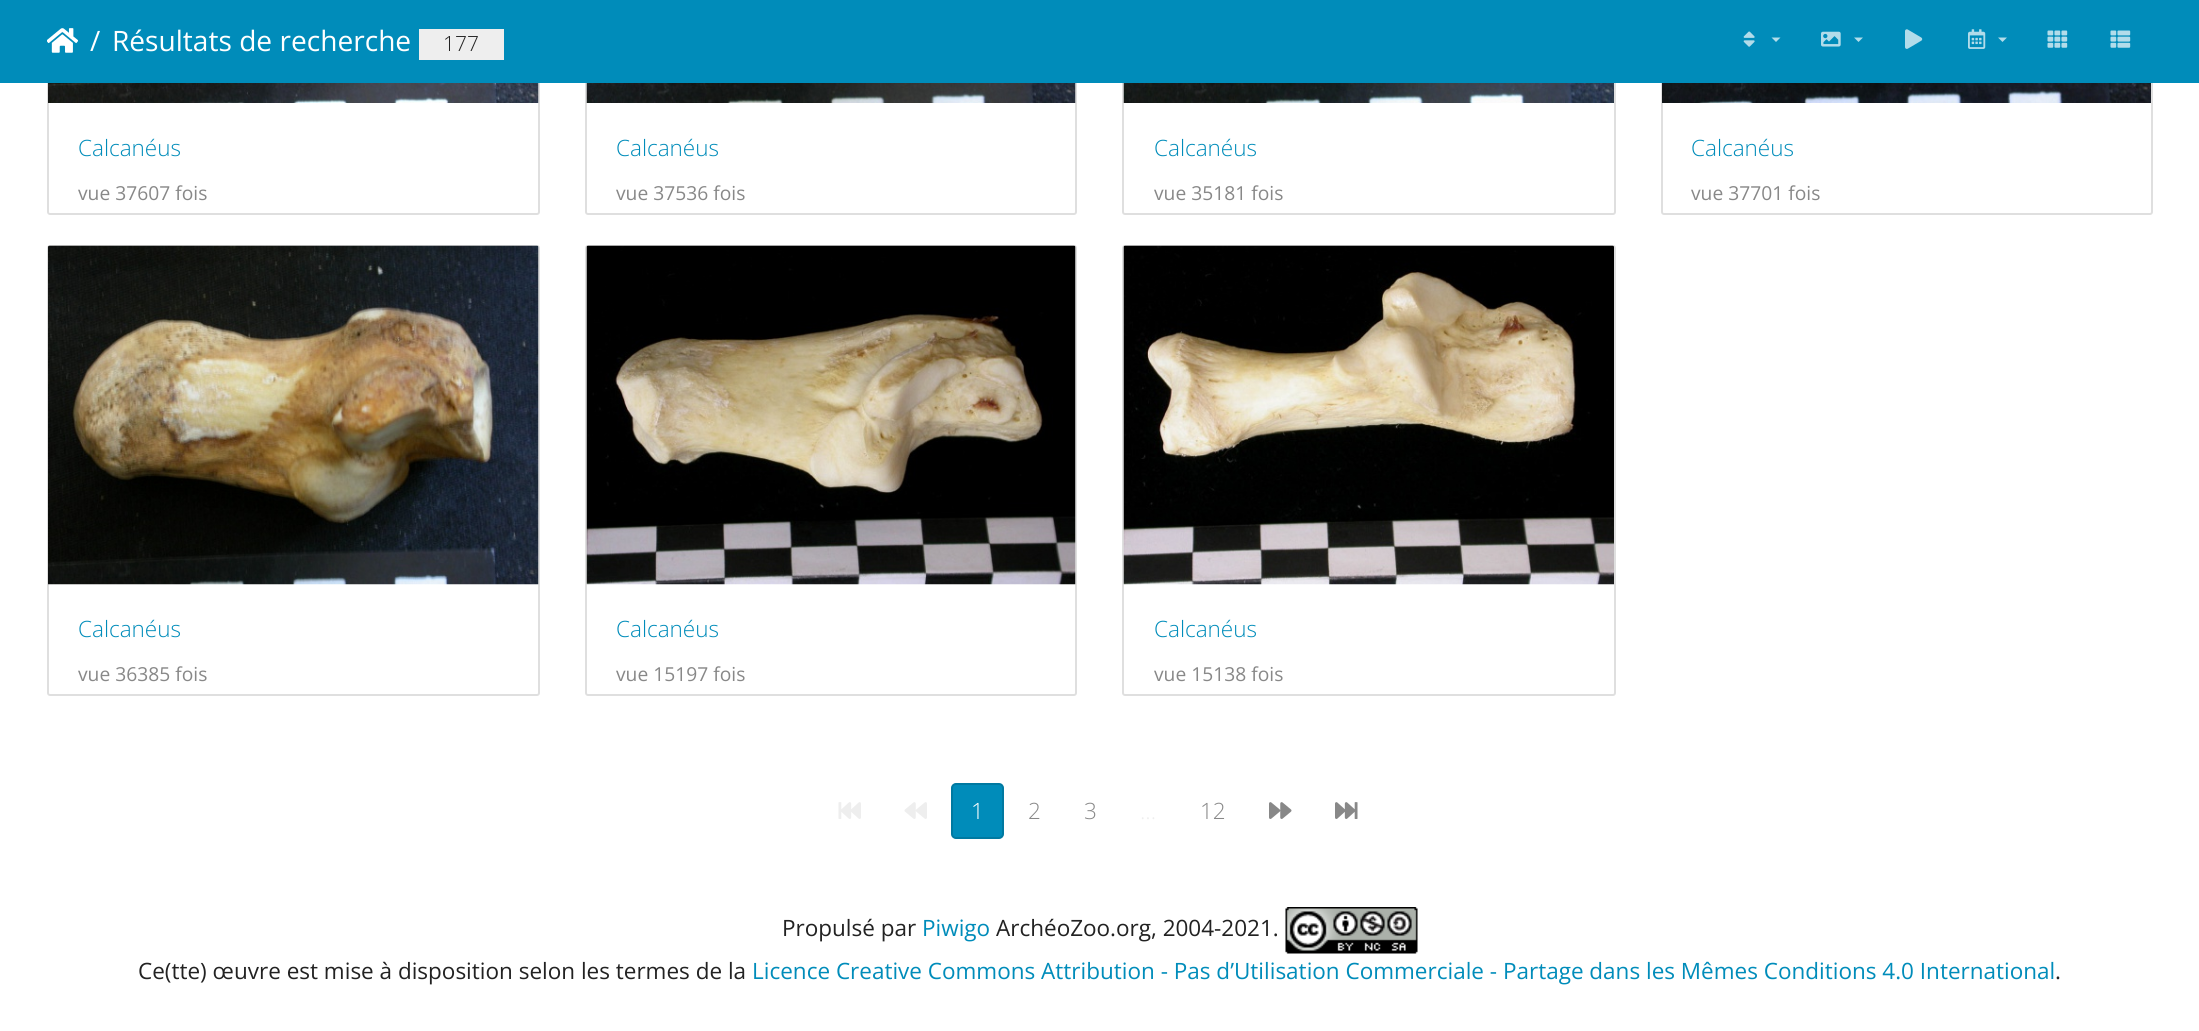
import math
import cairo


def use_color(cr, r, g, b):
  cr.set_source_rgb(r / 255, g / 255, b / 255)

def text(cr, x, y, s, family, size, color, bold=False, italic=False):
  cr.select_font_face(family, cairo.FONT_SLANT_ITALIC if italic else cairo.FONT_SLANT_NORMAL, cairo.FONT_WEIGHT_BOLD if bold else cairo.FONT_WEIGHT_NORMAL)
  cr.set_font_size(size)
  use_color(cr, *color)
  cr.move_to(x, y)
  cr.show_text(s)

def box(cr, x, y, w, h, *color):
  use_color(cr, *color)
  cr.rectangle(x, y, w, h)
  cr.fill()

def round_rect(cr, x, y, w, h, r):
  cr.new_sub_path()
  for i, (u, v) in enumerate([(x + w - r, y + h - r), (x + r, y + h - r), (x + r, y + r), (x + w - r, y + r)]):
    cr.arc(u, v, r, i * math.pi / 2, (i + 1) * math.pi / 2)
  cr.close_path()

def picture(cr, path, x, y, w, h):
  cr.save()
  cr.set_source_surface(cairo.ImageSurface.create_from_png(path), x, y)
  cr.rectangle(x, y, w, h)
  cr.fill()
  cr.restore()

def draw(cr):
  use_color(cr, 255, 255, 255)
  cr.paint()
  round_rect(cr, 48, -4, 491, 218, 2)
  use_color(cr, 223, 223, 223)
  cr.stroke()
  round_rect(cr, 586, -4, 490, 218, 2)
  cr.stroke()
  round_rect(cr, 1123, -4, 492, 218, 2)
  cr.stroke()
  round_rect(cr, 1662, -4, 490, 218, 2)
  cr.stroke()
  box(cr, 0, 0, 2199, 83, 0, 140, 186)
  picture(cr, "img_01.png", 47, 28, 31, 25)
  box(cr, 419, 29, 85, 31, 238, 238, 238)
  picture(cr, "img_02.png", 1743, 31, 12, 16)
  use_color(cr, 179, 221, 234)
  cr.new_path()
  cr.move_to(1771.5, 37.5)
  cr.line_to(1780.5, 37.5)
  cr.line_to(1776, 42)
  cr.close_path()
  cr.fill()
  picture(cr, "img_03.png", 1821, 31, 20, 16)
  cr.new_path()
  cr.move_to(1854, 37.5)
  cr.line_to(1863, 37.5)
  cr.line_to(1858.5, 42)
  cr.close_path()
  cr.fill()
  picture(cr, "img_04.png", 1905, 29, 18, 20)
  picture(cr, "img_05.png", 1968, 29, 18, 20)
  cr.new_path()
  cr.move_to(1998, 37.5)
  cr.line_to(2007, 37.5)
  cr.line_to(2002.5, 42)
  cr.close_path()
  cr.fill()
  picture(cr, "img_06.png", 2047, 30, 21, 18)
  picture(cr, "img_07.png", 2110, 30, 21, 18)
  picture(cr, "img_08.png", 48, 83, 491, 20)
  picture(cr, "img_09.png", 586, 83, 490, 20)
  picture(cr, "img_10.png", 1123, 83, 491, 20)
  picture(cr, "img_11.png", 1662, 83, 489, 20)
  round_rect(cr, 48, 246, 491, 449, 2)
  use_color(cr, 223, 223, 223)
  cr.stroke()
  picture(cr, "img_12.png", 48, 245, 491, 340)
  round_rect(cr, 586, 246, 490, 449, 2)
  cr.stroke()
  picture(cr, "img_13.png", 586, 245, 490, 340)
  round_rect(cr, 1123, 246, 492, 449, 2)
  cr.stroke()
  picture(cr, "img_14.png", 1123, 245, 491, 340)
  picture(cr, "img_15.png", 838, 802, 23, 17)
  picture(cr, "img_16.png", 904, 802, 23, 17)
  use_color(cr, 0, 140, 186)
  round_rect(cr, 952, 784, 51, 54, 4)
  cr.fill_preserve()
  use_color(cr, 0, 121, 161)
  cr.stroke()
  picture(cr, "img_17.png", 1269, 802, 23, 17)
  picture(cr, "img_18.png", 1335, 802, 23, 17)
  picture(cr, "img_19.png", 1285, 907, 133, 47)
  text(cr, 90, 51, "/", "Open Sans", 28.1, (255, 255, 255))
  text(cr, 112, 51, "Résultats de recherche", "Open Sans", 28.1, (255, 255, 255))
  text(cr, 443, 51, "177", "Open Sans Light", 21, (34, 34, 34))
  text(cr, 78, 156, "Calcanéus", "Open Sans Light", 22.5, (0, 140, 186))
  text(cr, 78, 200, "vue 37607 fois", "Open Sans", 19.25, (136, 136, 136))
  text(cr, 616, 156, "Calcanéus", "Open Sans Light", 22.5, (0, 140, 186))
  text(cr, 616, 200, "vue 37536 fois", "Open Sans", 19.25, (136, 136, 136))
  text(cr, 1154, 156, "Calcanéus", "Open Sans Light", 22.5, (0, 140, 186))
  text(cr, 1154, 200, "vue 35181 fois", "Open Sans", 19.25, (136, 136, 136))
  text(cr, 1691, 156, "Calcanéus", "Open Sans Light", 22.5, (0, 140, 186))
  text(cr, 1691, 200, "vue 37701 fois", "Open Sans", 19.25, (136, 136, 136))
  text(cr, 78, 637, "Calcanéus", "Open Sans Light", 22.5, (0, 140, 186))
  text(cr, 78, 681, "vue 36385 fois", "Open Sans", 19.25, (136, 136, 136))
  text(cr, 616, 637, "Calcanéus", "Open Sans Light", 22.5, (0, 140, 186))
  text(cr, 616, 681, "vue 15197 fois", "Open Sans", 19.25, (136, 136, 136))
  text(cr, 1154, 637, "Calcanéus", "Open Sans Light", 22.5, (0, 140, 186))
  text(cr, 1154, 681, "vue 15138 fois", "Open Sans", 19.25, (136, 136, 136))
  text(cr, 971, 819, "1", "Open Sans Light", 22.5, (255, 255, 255))
  text(cr, 1028, 819, "2", "Open Sans Light", 22.5, (136, 136, 136))
  text(cr, 1084, 819, "3", "Open Sans Light", 22.5, (136, 136, 136))
  text(cr, 1140, 819, "...", "Open Sans Light", 22.5, (238, 238, 238))
  text(cr, 1200, 819, "12", "Open Sans Light", 22.5, (136, 136, 136))
  text(cr, 782, 936, "Propulsé par", "Open Sans", 22.5, (34, 34, 34))
  text(cr, 922, 936, "Piwigo", "Open Sans", 22.5, (0, 140, 186))
  text(cr, 996, 936, "ArchéoZoo.org, 2004-2021.", "Open Sans", 22.5, (34, 34, 34))
  text(cr, 138, 979, "Ce(tte) œuvre est mise à disposition selon les termes de la", "Open Sans", 22.5, (34, 34, 34))
  text(cr, 752, 979, "Licence Creative Commons Attribution - Pas d’Utilisation Commerciale - Partage dans les Mêmes Conditions 4.0 International", "Open Sans", 22.5, (0, 140, 186))
  text(cr, 2055, 979, ".", "Open Sans", 22.5, (34, 34, 34))


surface = cairo.ImageSurface(cairo.FORMAT_RGB24, 2199, 1031)
cr = cairo.Context(surface)
options = cairo.FontOptions()
options.set_hint_metrics(cairo.HINT_METRICS_OFF)
options.set_hint_style(cairo.HINT_STYLE_NONE)
cr.set_font_options(options)
cr.set_miter_limit(4)
draw(cr)
surface.write_to_png("out.png")
